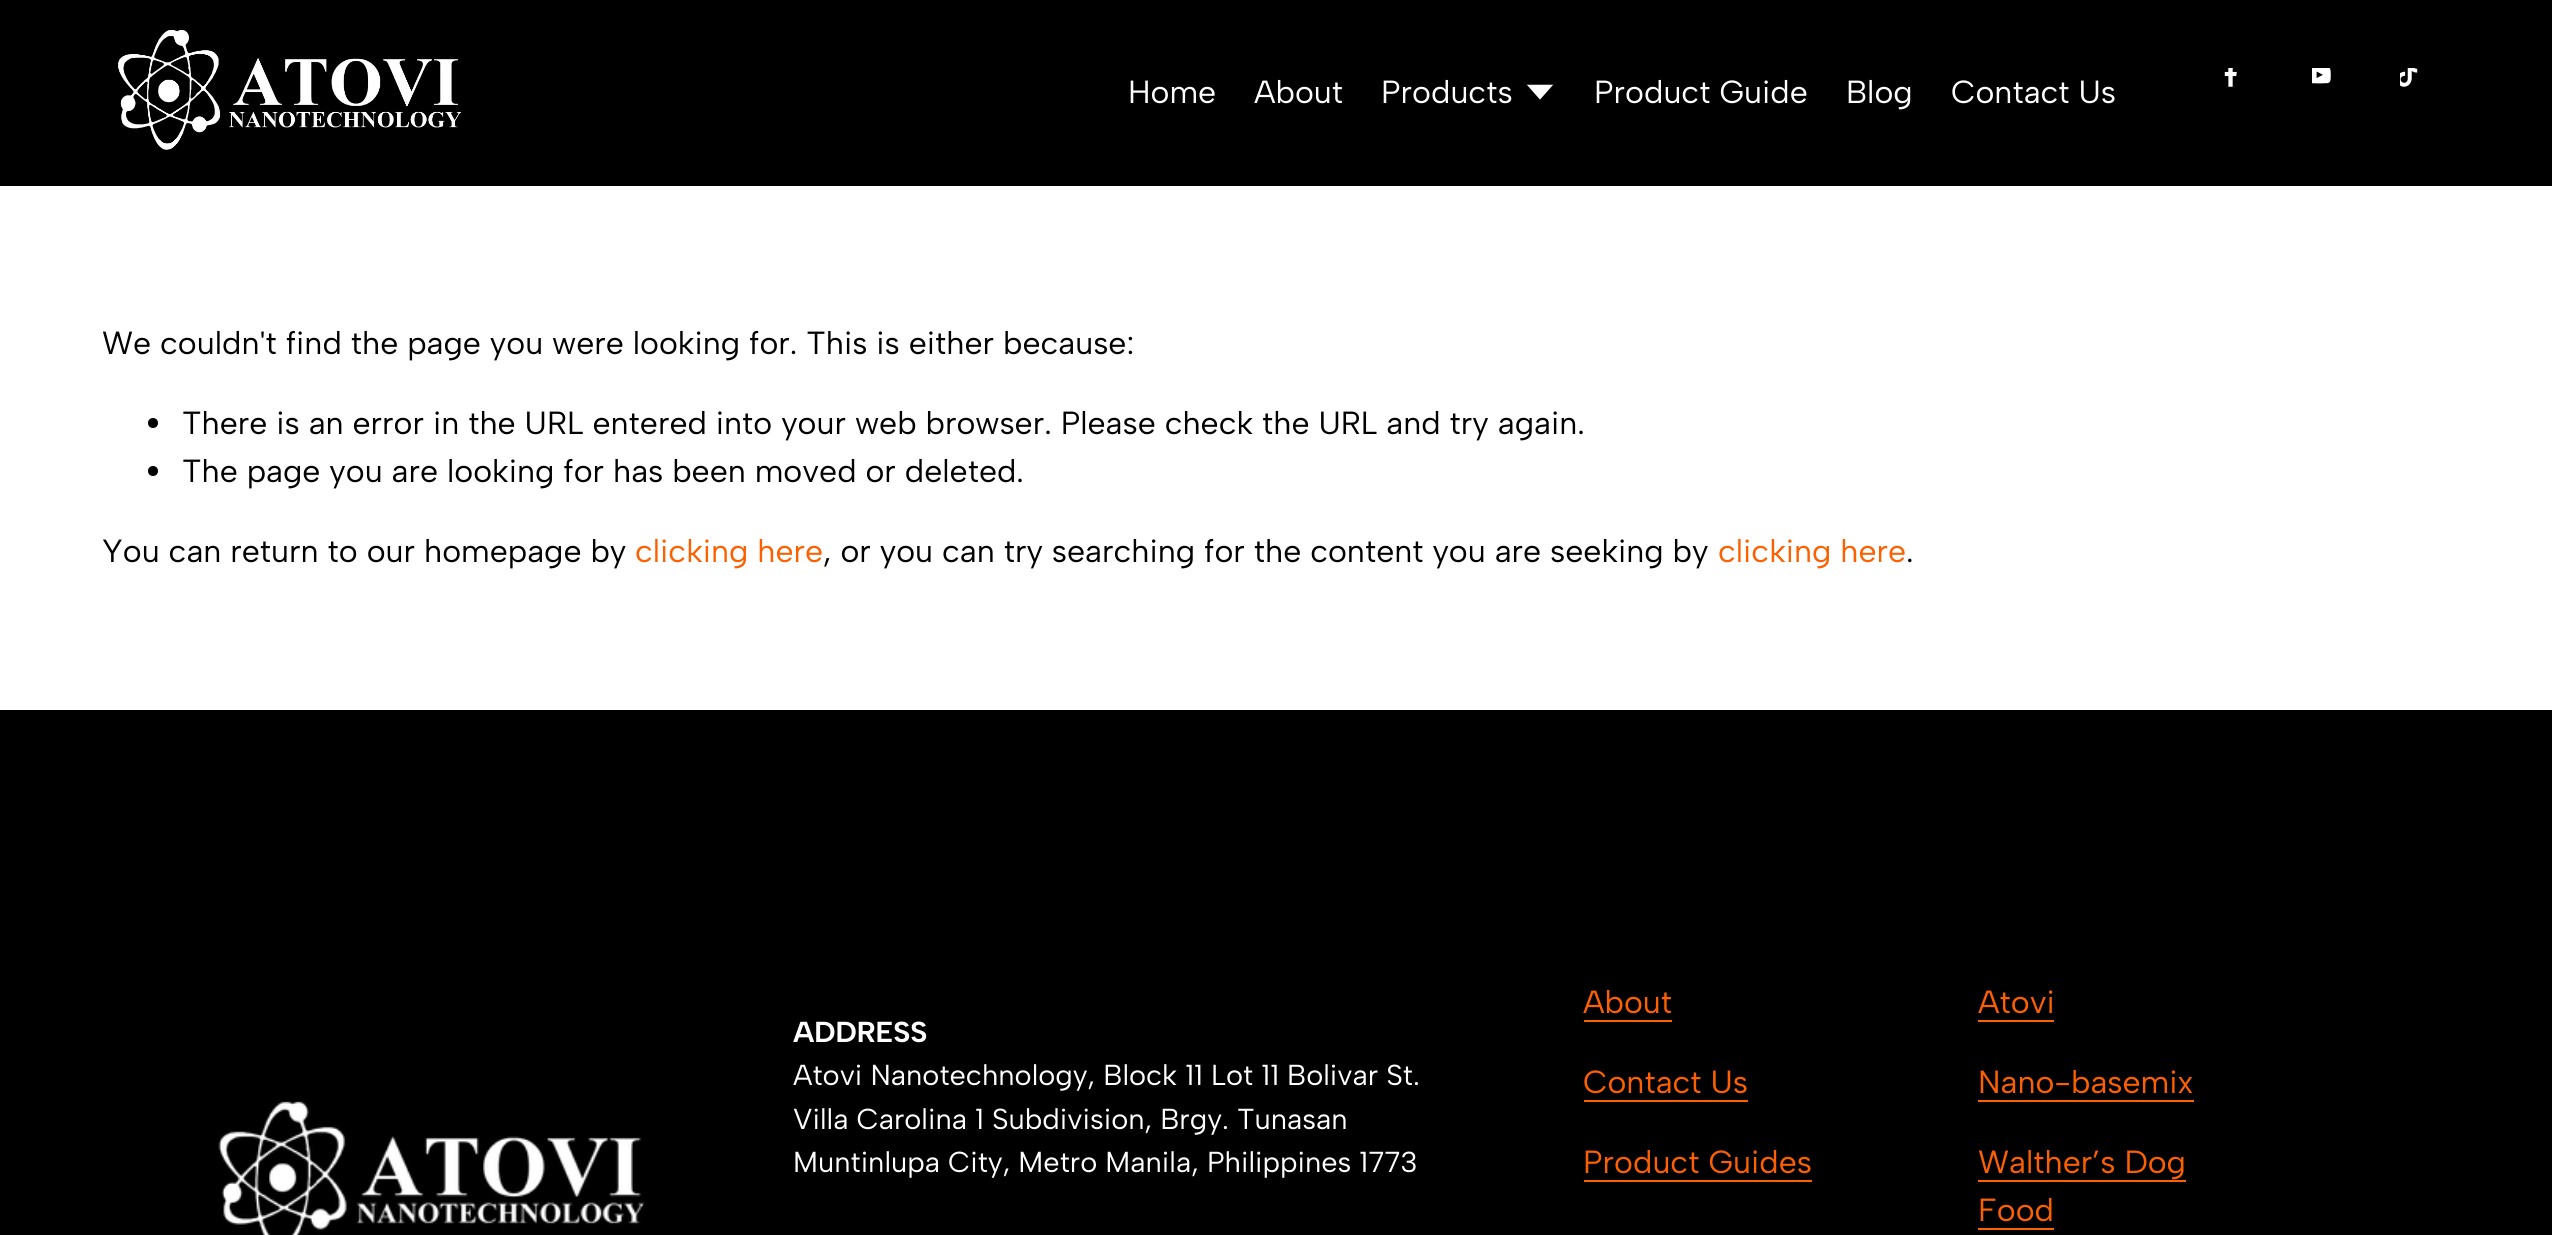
import math
import cairo


def use_color(cr, r, g, b):
  cr.set_source_rgb(r / 255, g / 255, b / 255)

def text(cr, x, y, s, family, size, color, bold=False, italic=False):
  cr.select_font_face(family, cairo.FONT_SLANT_ITALIC if italic else cairo.FONT_SLANT_NORMAL, cairo.FONT_WEIGHT_BOLD if bold else cairo.FONT_WEIGHT_NORMAL)
  cr.set_font_size(size)
  use_color(cr, *color)
  cr.move_to(x, y)
  cr.show_text(s)

def box(cr, x, y, w, h, *color):
  use_color(cr, *color)
  cr.rectangle(x, y, w, h)
  cr.fill()

def picture(cr, path, x, y, w, h):
  cr.save()
  cr.set_source_surface(cairo.ImageSurface.create_from_png(path), x, y)
  cr.rectangle(x, y, w, h)
  cr.fill()
  cr.restore()

def draw(cr):
  use_color(cr, 255, 255, 255)
  cr.paint()
  box(cr, 0, 0, 2552, 186, 0, 0, 0)
  picture(cr, "img_01.png", 118, 29, 344, 121)
  use_color(cr, 255, 255, 255)
  cr.new_path()
  cr.move_to(1551.5, 85.5)
  cr.line_to(1540, 98.5)
  cr.line_to(1528.5, 85.5)
  cr.close_path()
  cr.fill_preserve()
  cr.set_line_width(1.5)
  cr.set_line_cap(cairo.LINE_CAP_SQUARE)
  cr.stroke()
  picture(cr, "img_02.png", 2224, 68, 13, 19)
  picture(cr, "img_03.png", 2312, 68, 19, 16)
  picture(cr, "img_04.png", 2400, 68, 18, 19)
  use_color(cr, 0, 0, 0)
  cr.arc(153, 423, 5, 0, 2 * math.pi)
  cr.fill()
  cr.arc(153, 471, 5, 0, 2 * math.pi)
  cr.fill()
  box(cr, 0, 710, 2552, 525, 0, 0, 0)
  picture(cr, "img_05.png", 218, 1101, 427, 134)
  box(cr, 1584, 1020, 88, 2, 253, 96, 0)
  box(cr, 1584, 1100, 164, 2, 253, 96, 0)
  box(cr, 1584, 1180, 228, 2, 253, 96, 0)
  box(cr, 1978, 1020, 76, 2, 253, 96, 0)
  box(cr, 1978, 1100, 216, 2, 253, 96, 0)
  box(cr, 1978, 1180, 208, 2, 253, 96, 0)
  box(cr, 1978, 1228, 76, 2, 253, 96, 0)
  text(cr, 1128, 103, "Home", "Albert Sans", 32, (255, 255, 255))
  text(cr, 1254, 103, "About", "Albert Sans", 32, (255, 255, 255))
  text(cr, 1381, 103, "Products", "Albert Sans", 32, (255, 255, 255))
  text(cr, 1594, 103, "Product Guide", "Albert Sans", 32, (255, 255, 255))
  text(cr, 1846, 103, "Blog", "Albert Sans", 32, (255, 255, 255))
  text(cr, 1951, 103, "Contact Us", "Albert Sans", 32, (255, 255, 255))
  text(cr, 102, 354, "We couldn't find the page you were looking for. This is either because:", "Albert Sans", 32, (0, 0, 0))
  text(cr, 182, 434, "There is an error in the URL entered into your web browser. Please check the URL and try again.", "Albert Sans", 32, (0, 0, 0))
  text(cr, 182, 482, "The page you are looking for has been moved or deleted.", "Albert Sans", 32, (0, 0, 0))
  text(cr, 102, 562, "You can return to our homepage by", "Albert Sans", 32, (0, 0, 0))
  text(cr, 635, 562, "clicking here", "Albert Sans", 32, (253, 96, 0))
  text(cr, 823, 562, ", or you can try searching for the content you are seeking by", "Albert Sans", 32, (0, 0, 0))
  text(cr, 1718, 562, "clicking here", "Albert Sans", 32, (253, 96, 0))
  text(cr, 1906, 562, ".", "Albert Sans", 32, (0, 0, 0))
  text(cr, 793, 1042, "ADDRESS", "Albert Sans", 28.9, (255, 255, 255), bold=True)
  text(cr, 793, 1085, "Atovi Nanotechnology, Block 11 Lot 11 Bolivar St.", "Albert Sans", 28.9, (255, 255, 255))
  text(cr, 793, 1129, "Villa Carolina 1 Subdivision, Brgy. Tunasan", "Albert Sans", 28.9, (255, 255, 255))
  text(cr, 793, 1172, "Muntinlupa City, Metro Manila, Philippines 1773", "Albert Sans", 28.9, (255, 255, 255))
  text(cr, 1583, 1013, "About", "Albert Sans", 32, (253, 96, 0))
  text(cr, 1583, 1093, "Contact Us", "Albert Sans", 32, (253, 96, 0))
  text(cr, 1583, 1173, "Product Guides", "Albert Sans", 32, (253, 96, 0))
  text(cr, 1978, 1013, "Atovi", "Albert Sans", 32, (253, 96, 0))
  text(cr, 1978, 1093, "Nano-basemix", "Albert Sans", 32, (253, 96, 0))
  text(cr, 1978, 1173, "Walther’s Dog", "Albert Sans", 32, (253, 96, 0))
  text(cr, 1978, 1221, "Food", "Albert Sans", 32, (253, 96, 0))


surface = cairo.ImageSurface(cairo.FORMAT_RGB24, 2552, 1235)
cr = cairo.Context(surface)
options = cairo.FontOptions()
options.set_hint_metrics(cairo.HINT_METRICS_OFF)
options.set_hint_style(cairo.HINT_STYLE_NONE)
cr.set_font_options(options)
cr.set_miter_limit(4)
draw(cr)
surface.write_to_png("out.png")
